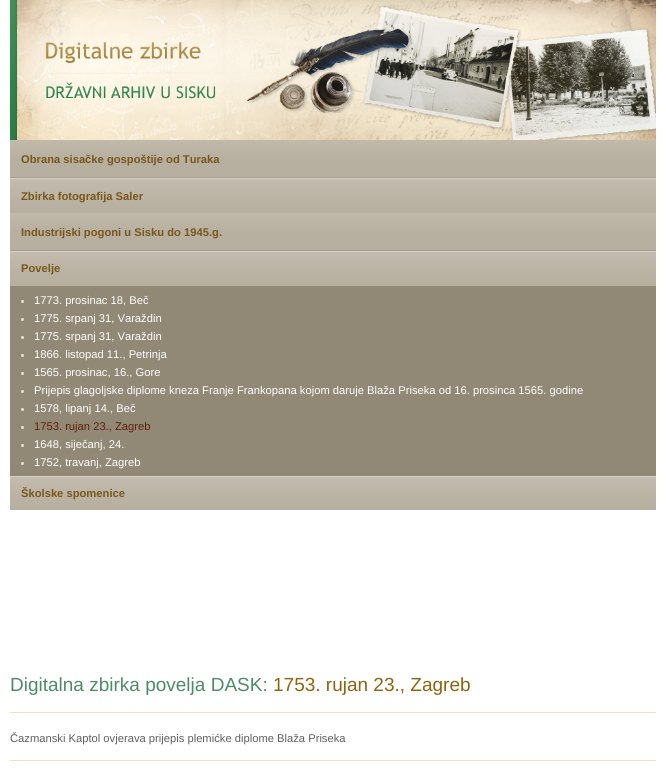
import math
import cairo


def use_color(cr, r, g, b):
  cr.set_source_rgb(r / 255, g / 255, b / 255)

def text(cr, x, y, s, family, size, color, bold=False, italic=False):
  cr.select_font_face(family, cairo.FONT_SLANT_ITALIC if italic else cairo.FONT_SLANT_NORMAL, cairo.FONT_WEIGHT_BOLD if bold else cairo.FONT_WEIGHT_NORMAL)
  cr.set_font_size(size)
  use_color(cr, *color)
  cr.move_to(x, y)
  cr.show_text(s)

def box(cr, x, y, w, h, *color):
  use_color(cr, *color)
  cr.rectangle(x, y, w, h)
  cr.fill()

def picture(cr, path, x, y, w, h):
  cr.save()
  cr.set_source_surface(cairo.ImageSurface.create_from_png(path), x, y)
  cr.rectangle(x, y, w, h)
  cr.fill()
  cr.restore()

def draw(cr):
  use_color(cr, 255, 255, 255)
  cr.paint()
  picture(cr, "img_01.png", 10, 0, 646, 140)
  picture(cr, "img_02.png", 10, 140, 646, 38)
  picture(cr, "img_03.png", 10, 178, 646, 35)
  picture(cr, "img_02.png", 10, 213, 646, 38)
  picture(cr, "img_03.png", 10, 251, 646, 35)
  box(cr, 10, 286, 646, 190, 145, 136, 118)
  use_color(cr, 239, 224, 195)
  cr.arc(22.5, 301.5, 1.5, 0, 2 * math.pi)
  cr.fill()
  cr.arc(22.5, 319.5, 1.5, 0, 2 * math.pi)
  cr.fill()
  cr.arc(22.5, 337.5, 1.5, 0, 2 * math.pi)
  cr.fill()
  cr.arc(22.5, 355.5, 1.5, 0, 2 * math.pi)
  cr.fill()
  cr.arc(22.5, 373.5, 1.5, 0, 2 * math.pi)
  cr.fill()
  cr.arc(22.5, 391.5, 1.5, 0, 2 * math.pi)
  cr.fill()
  cr.arc(22.5, 409.5, 1.5, 0, 2 * math.pi)
  cr.fill()
  cr.arc(22.5, 427.5, 1.5, 0, 2 * math.pi)
  cr.fill()
  cr.arc(22.5, 445.5, 1.5, 0, 2 * math.pi)
  cr.fill()
  cr.arc(22.5, 463.5, 1.5, 0, 2 * math.pi)
  cr.fill()
  picture(cr, "img_04.png", 10, 476, 646, 34)
  box(cr, 10, 712, 646, 1, 239, 224, 195)
  box(cr, 10, 760, 646, 1, 239, 224, 195)
  text(cr, 21, 163, "Obrana sisačke gospoštije od Turaka", "Liberation Sans", 11.2, (120, 87, 26), bold=True)
  text(cr, 21, 200, "Zbirka fotografija Saler", "Liberation Sans", 11.2, (120, 87, 26), bold=True)
  text(cr, 21, 236, "Industrijski pogoni u Sisku do 1945.g.", "Liberation Sans", 11.2, (120, 87, 26), bold=True)
  text(cr, 21, 272, "Povelje", "Liberation Sans", 11.2, (120, 87, 26), bold=True)
  text(cr, 34, 304, "1773. prosinac 18, Beč", "Liberation Sans", 11.2, (255, 255, 255))
  text(cr, 34, 322, "1775. srpanj 31, Varaždin", "Liberation Sans", 11.2, (255, 255, 255))
  text(cr, 34, 340, "1775. srpanj 31, Varaždin", "Liberation Sans", 11.2, (255, 255, 255))
  text(cr, 34, 358, "1866. listopad 11., Petrinja", "Liberation Sans", 11.2, (255, 255, 255))
  text(cr, 34, 376, "1565. prosinac, 16., Gore", "Liberation Sans", 11.2, (255, 255, 255))
  text(cr, 34, 394, "Prijepis glagoljske diplome kneza Franje Frankopana kojom daruje Blaža Priseka od 16. prosinca 1565. godine", "Liberation Sans", 11.2, (255, 255, 255))
  text(cr, 34, 412, "1578, lipanj 14., Beč", "Liberation Sans", 11.2, (255, 255, 255))
  text(cr, 34, 430, "1753. rujan 23., Zagreb", "Liberation Sans", 11.2, (96, 33, 11))
  text(cr, 34, 448, "1648, siječanj, 24.", "Liberation Sans", 11.2, (255, 255, 255))
  text(cr, 34, 466, "1752, travanj, Zagreb", "Liberation Sans", 11.2, (255, 255, 255))
  text(cr, 21, 497, "Školske spomenice", "Liberation Sans", 11.2, (120, 87, 26), bold=True)
  text(cr, 10, 691, "Digitalna zbirka povelja DASK:", "Liberation Sans", 19, (75, 140, 103))
  text(cr, 273, 691, "1753. rujan 23., Zagreb", "Liberation Sans", 19, (146, 98, 12))
  text(cr, 10, 742, "Čazmanski Kaptol ovjerava prijepis plemićke diplome Blaža Priseka", "Liberation Sans", 11.2, (95, 95, 95))


surface = cairo.ImageSurface(cairo.FORMAT_RGB24, 666, 776)
cr = cairo.Context(surface)
options = cairo.FontOptions()
options.set_hint_metrics(cairo.HINT_METRICS_OFF)
options.set_hint_style(cairo.HINT_STYLE_NONE)
cr.set_font_options(options)
cr.set_miter_limit(4)
draw(cr)
surface.write_to_png("out.png")
